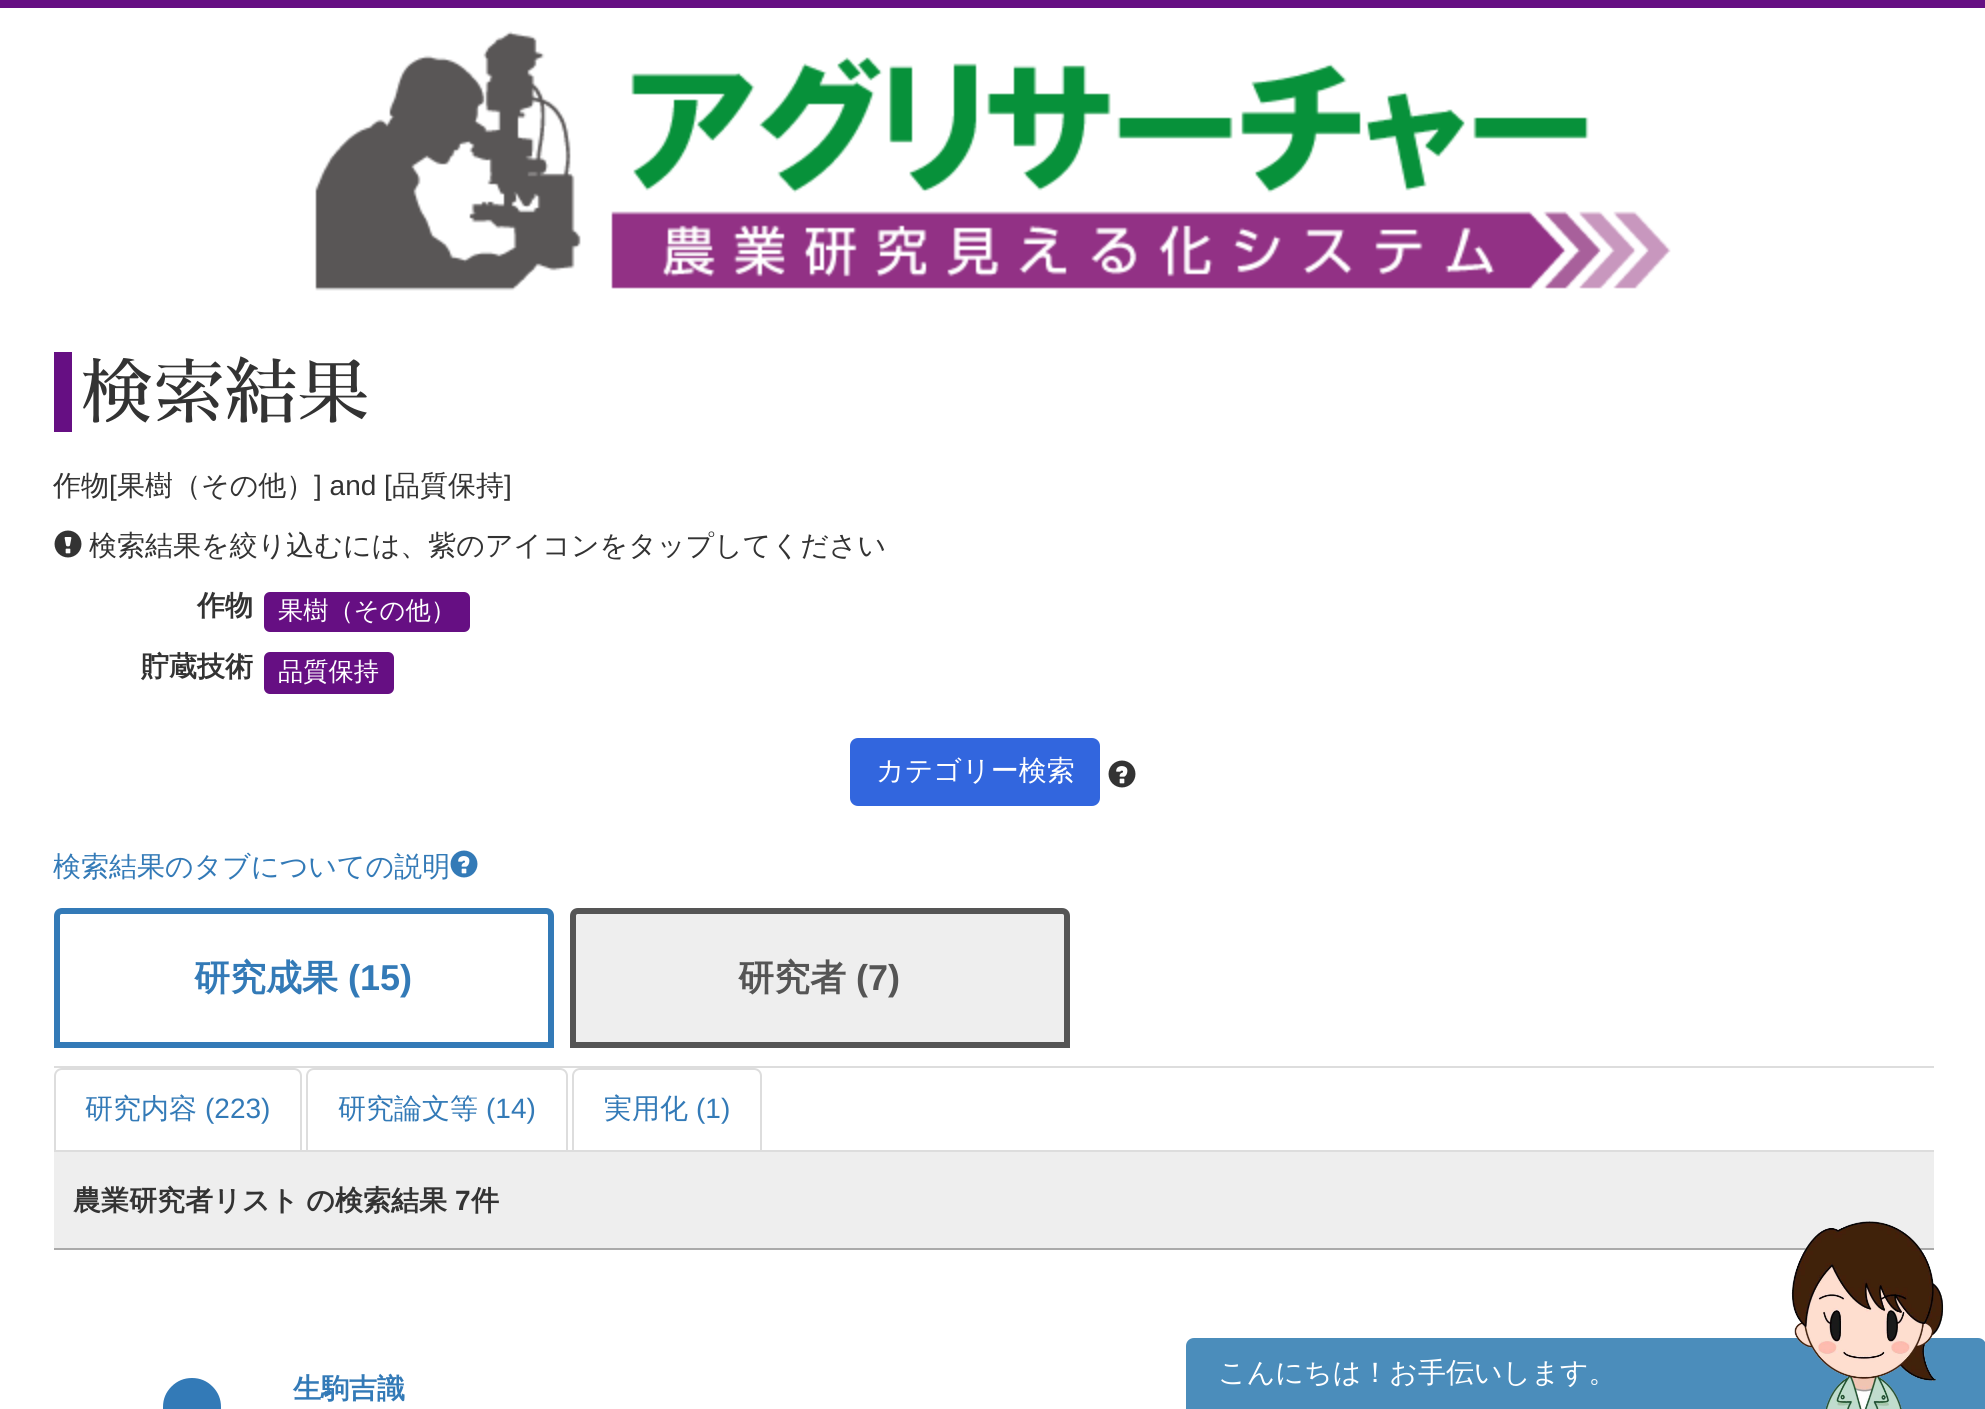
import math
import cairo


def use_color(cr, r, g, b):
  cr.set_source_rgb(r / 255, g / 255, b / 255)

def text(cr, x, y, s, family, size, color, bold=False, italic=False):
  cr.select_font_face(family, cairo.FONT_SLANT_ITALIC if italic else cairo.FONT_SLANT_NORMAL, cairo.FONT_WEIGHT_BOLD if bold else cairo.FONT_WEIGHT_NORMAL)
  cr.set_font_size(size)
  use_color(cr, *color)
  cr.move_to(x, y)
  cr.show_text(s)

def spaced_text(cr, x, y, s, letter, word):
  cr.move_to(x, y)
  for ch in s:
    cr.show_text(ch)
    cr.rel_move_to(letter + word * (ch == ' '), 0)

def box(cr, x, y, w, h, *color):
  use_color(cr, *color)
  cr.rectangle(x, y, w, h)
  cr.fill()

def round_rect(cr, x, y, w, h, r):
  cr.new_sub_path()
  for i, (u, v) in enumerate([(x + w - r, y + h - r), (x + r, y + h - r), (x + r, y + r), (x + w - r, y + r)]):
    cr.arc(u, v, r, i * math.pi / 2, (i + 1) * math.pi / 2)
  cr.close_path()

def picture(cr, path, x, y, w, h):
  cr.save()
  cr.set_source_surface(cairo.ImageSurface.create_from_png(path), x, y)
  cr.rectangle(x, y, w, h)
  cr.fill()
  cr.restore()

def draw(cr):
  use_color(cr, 255, 255, 255)
  cr.paint()
  box(cr, 0, 0, 1985, 8, 102, 15, 131)
  picture(cr, "img_01.png", 315, 31, 1356, 260)
  box(cr, 54, 352, 18, 80, 102, 15, 131)
  picture(cr, "img_02.png", 54, 530, 28, 28)
  round_rect(cr, 264, 592, 206, 40, 6)
  cr.fill()
  round_rect(cr, 264, 652, 130, 42, 6)
  cr.fill()
  use_color(cr, 50, 102, 222)
  round_rect(cr, 851, 739, 248, 66, 7)
  cr.fill_preserve()
  cr.stroke()
  picture(cr, "img_03.png", 1108, 760, 28, 28)
  picture(cr, "img_04.png", 450, 850, 28, 28)
  box(cr, 54, 1066, 1880, 2, 221, 221, 221)
  cr.new_path()
  cr.move_to(62, 911)
  cr.line_to(546, 911)
  cr.curve_to(549, 911, 551, 913, 551, 916)
  cr.line_to(551, 1045)
  cr.line_to(57, 1045)
  cr.line_to(57, 916)
  cr.curve_to(57, 913, 59, 911, 62, 911)
  cr.close_path()
  use_color(cr, 51, 122, 183)
  cr.set_line_width(6)
  cr.stroke()
  use_color(cr, 238, 238, 238)
  cr.new_path()
  cr.move_to(578, 911)
  cr.line_to(1062, 911)
  cr.curve_to(1065, 911, 1067, 913, 1067, 916)
  cr.line_to(1067, 1045)
  cr.line_to(573, 1045)
  cr.line_to(573, 916)
  cr.curve_to(573, 913, 575, 911, 578, 911)
  cr.close_path()
  cr.fill_preserve()
  use_color(cr, 85, 85, 85)
  cr.stroke()
  box(cr, 302, 1150, 1632, 2, 221, 221, 221)
  cr.new_path()
  cr.move_to(62, 1069)
  cr.line_to(294, 1069)
  cr.curve_to(298, 1069, 301, 1072, 301, 1076)
  cr.line_to(301, 1151)
  cr.line_to(55, 1151)
  cr.line_to(55, 1076)
  cr.curve_to(55, 1072, 58, 1069, 62, 1069)
  cr.close_path()
  cr.set_line_width(2)
  cr.stroke()
  cr.new_path()
  cr.move_to(314, 1069)
  cr.line_to(560, 1069)
  cr.curve_to(564, 1069, 567, 1072, 567, 1076)
  cr.line_to(567, 1151)
  cr.line_to(307, 1151)
  cr.line_to(307, 1076)
  cr.curve_to(307, 1072, 310, 1069, 314, 1069)
  cr.close_path()
  cr.stroke()
  cr.new_path()
  cr.move_to(580, 1069)
  cr.line_to(754, 1069)
  cr.curve_to(758, 1069, 761, 1072, 761, 1076)
  cr.line_to(761, 1151)
  cr.line_to(573, 1151)
  cr.line_to(573, 1076)
  cr.curve_to(573, 1072, 576, 1069, 580, 1069)
  cr.close_path()
  cr.stroke()
  box(cr, 54, 1152, 1880, 96, 238, 238, 238)
  box(cr, 54, 1248, 1880, 2, 170, 170, 170)
  picture(cr, "img_05.png", 163, 1378, 58, 31)
  use_color(cr, 75, 141, 187)
  cr.new_path()
  cr.move_to(1194, 1338)
  cr.line_to(1978, 1338)
  cr.curve_to(1982.5, 1338, 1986, 1341.5, 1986, 1346)
  cr.line_to(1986, 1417)
  cr.line_to(1186, 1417)
  cr.line_to(1186, 1346)
  cr.curve_to(1186, 1341.5, 1189.5, 1338, 1194, 1338)
  cr.close_path()
  cr.fill()
  picture(cr, "img_06.png", 1791, 1221, 153, 188)
  text(cr, 81, 418, "検索結果", "Sawarabi Mincho", 72, (51, 51, 51))
  text(cr, 53, 495, "作物", "WenQuanYi Zen Hei Medium", 28, (51, 51, 51))
  text(cr, 109, 495, "[", "Liberation Sans", 28, (51, 51, 51))
  text(cr, 117, 495, "果樹（その他）", "WenQuanYi Zen Hei Medium", 28, (51, 51, 51))
  text(cr, 314, 495, "] and [", "Liberation Sans", 28, (51, 51, 51))
  text(cr, 392, 495, "品質保持", "WenQuanYi Zen Hei Medium", 28, (51, 51, 51))
  text(cr, 504, 495, "]", "Liberation Sans", 28, (51, 51, 51))
  text(cr, 89, 555, "検索結果を絞り込むには、紫のアイコンをタップしてください", "WenQuanYi Zen Hei Medium", 28, (51, 51, 51))
  text(cr, 197, 615, "作物", "WenQuanYi Zen Hei", 28, (51, 51, 51), bold=True)
  text(cr, 278, 619, "果樹（その他）", "WenQuanYi Zen Hei Medium", 25.25, (255, 255, 255))
  text(cr, 141, 676, "貯蔵技術", "WenQuanYi Zen Hei", 28, (51, 51, 51), bold=True)
  text(cr, 278, 680, "品質保持", "WenQuanYi Zen Hei Medium", 25.25, (255, 255, 255))
  text(cr, 876, 780, "カテゴリー検索", "WenQuanYi Zen Hei Medium", 28, (255, 255, 255))
  text(cr, 53, 876, "検索結果のタブについての説明", "WenQuanYi Zen Hei Medium", 28, (51, 122, 183))
  text(cr, 194, 990, "研究成果", "WenQuanYi Zen Hei", 36, (51, 122, 183), bold=True)
  text(cr, 348, 990, "(15)", "Liberation Sans", 36, (51, 122, 183), bold=True)
  text(cr, 738, 990, "研究者", "WenQuanYi Zen Hei", 36, (85, 85, 85), bold=True)
  text(cr, 856, 990, "(7)", "Liberation Sans", 36, (85, 85, 85), bold=True)
  text(cr, 85, 1118, "研究内容", "WenQuanYi Zen Hei Medium", 28, (51, 122, 183))
  text(cr, 205, 1118, "(223)", "Liberation Sans", 28, (51, 122, 183))
  text(cr, 338, 1118, "研究論文等", "WenQuanYi Zen Hei Medium", 28, (51, 122, 183))
  text(cr, 486, 1118, "(14)", "Liberation Sans", 28, (51, 122, 183))
  text(cr, 604, 1118, "実用化", "WenQuanYi Zen Hei Medium", 28, (51, 122, 183))
  text(cr, 696, 1118, "(1)", "Liberation Sans", 28, (51, 122, 183))
  cr.select_font_face("WenQuanYi Zen Hei", cairo.FONT_SLANT_NORMAL, cairo.FONT_WEIGHT_BOLD)
  use_color(cr, 51, 51, 51)
  spaced_text(cr, 73, 1210, "農業研究者リスト の検索結果", 0, -1)
  text(cr, 455, 1210, "7", "Liberation Sans", 28, (51, 51, 51), bold=True)
  text(cr, 471, 1210, "件", "WenQuanYi Zen Hei", 28, (51, 51, 51), bold=True)
  text(cr, 293, 1398, "生駒吉識", "WenQuanYi Zen Hei", 28, (51, 122, 183), bold=True)
  text(cr, 1218, 1382, "こんにちは！お手伝いします。", "WenQuanYi Zen Hei Medium", 28, (255, 255, 255))


surface = cairo.ImageSurface(cairo.FORMAT_RGB24, 1985, 1409)
cr = cairo.Context(surface)
options = cairo.FontOptions()
options.set_hint_metrics(cairo.HINT_METRICS_OFF)
options.set_hint_style(cairo.HINT_STYLE_NONE)
cr.set_font_options(options)
cr.set_miter_limit(4)
draw(cr)
surface.write_to_png("out.png")
